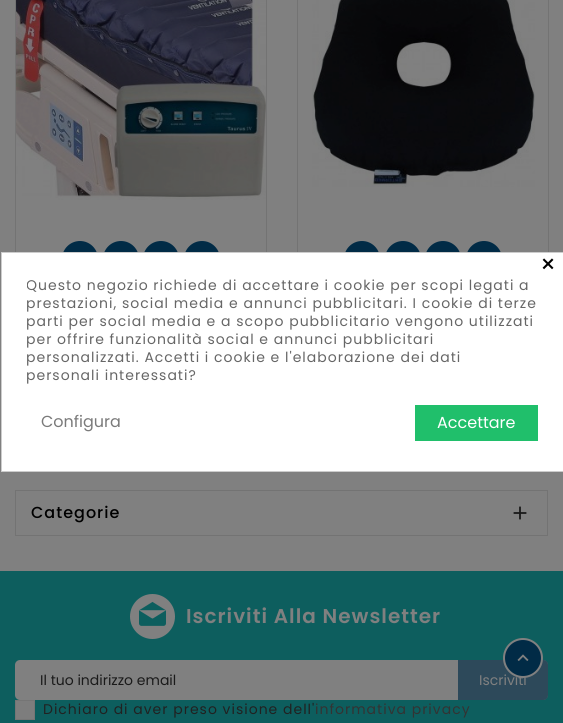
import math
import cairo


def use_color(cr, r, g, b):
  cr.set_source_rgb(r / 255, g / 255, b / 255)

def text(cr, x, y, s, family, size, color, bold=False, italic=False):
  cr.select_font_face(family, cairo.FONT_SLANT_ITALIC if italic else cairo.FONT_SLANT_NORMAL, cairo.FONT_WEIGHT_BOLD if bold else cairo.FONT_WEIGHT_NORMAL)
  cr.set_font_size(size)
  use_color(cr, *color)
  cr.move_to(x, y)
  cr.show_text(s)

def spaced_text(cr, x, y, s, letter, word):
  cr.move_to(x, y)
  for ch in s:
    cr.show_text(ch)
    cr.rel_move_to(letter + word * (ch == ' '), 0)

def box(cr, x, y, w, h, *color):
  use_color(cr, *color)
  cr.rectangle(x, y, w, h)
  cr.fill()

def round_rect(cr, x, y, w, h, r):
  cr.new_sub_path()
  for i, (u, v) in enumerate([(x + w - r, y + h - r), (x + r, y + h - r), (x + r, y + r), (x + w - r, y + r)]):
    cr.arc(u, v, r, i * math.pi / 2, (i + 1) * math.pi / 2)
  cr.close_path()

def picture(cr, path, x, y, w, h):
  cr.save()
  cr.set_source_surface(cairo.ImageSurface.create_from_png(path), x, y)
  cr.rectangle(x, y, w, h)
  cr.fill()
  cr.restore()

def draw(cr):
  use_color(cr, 128, 128, 128)
  cr.paint()
  cr.rectangle(15.5, -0.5, 251, 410)
  use_color(cr, 115, 115, 115)
  cr.set_line_width(1)
  cr.stroke()
  use_color(cr, 1, 43, 70)
  cr.arc(80, 259, 18, 0, 2 * math.pi)
  cr.fill()
  cr.arc(121, 259, 18, 0, 2 * math.pi)
  cr.fill()
  cr.arc(161, 259, 18, 0, 2 * math.pi)
  cr.fill()
  cr.arc(202, 259, 18, 0, 2 * math.pi)
  cr.fill()
  cr.rectangle(297.5, -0.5, 251, 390)
  use_color(cr, 115, 115, 115)
  cr.stroke()
  use_color(cr, 1, 43, 70)
  cr.arc(362, 259, 18, 0, 2 * math.pi)
  cr.fill()
  cr.arc(403, 259, 18, 0, 2 * math.pi)
  cr.fill()
  cr.arc(443, 259, 18, 0, 2 * math.pi)
  cr.fill()
  cr.arc(484, 259, 18, 0, 2 * math.pi)
  cr.fill()
  use_color(cr, 255, 255, 255)
  cr.rectangle(1.5, 252.5, 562, 219)
  cr.fill_preserve()
  use_color(cr, 204, 204, 204)
  cr.stroke()
  box(cr, 415, 405, 123, 36, 32, 191, 107)
  picture(cr, "img_01.png", 16, 0, 250, 200)
  picture(cr, "img_02.png", 312, 0, 223, 187)
  cr.rectangle(15.5, 490.5, 532, 45)
  use_color(cr, 115, 115, 115)
  cr.stroke()
  picture(cr, "img_03.png", 513, 506, 14, 14)
  box(cr, 0, 571, 563, 152, 13, 94, 94)
  picture(cr, "img_04.png", 130, 594, 45, 45)
  use_color(cr, 128, 128, 128)
  round_rect(cr, 15, 660, 533, 40, 5)
  cr.fill()
  cr.set_source_rgba(0.004, 0.169, 0.275, 0.65)
  cr.new_path()
  cr.move_to(458, 660)
  cr.line_to(543, 660)
  cr.curve_to(546, 660, 548, 662, 548, 665)
  cr.line_to(548, 695)
  cr.curve_to(548, 698, 546, 700, 543, 700)
  cr.line_to(458, 700)
  cr.close_path()
  cr.fill()
  use_color(cr, 125, 125, 125)
  cr.rectangle(15.5, 700.5, 19, 19)
  cr.fill_preserve()
  use_color(cr, 117, 117, 117)
  cr.stroke()
  text(cr, 540, 273, "×", "Poppins", 25, (0, 0, 0))
  cr.save()
  cr.rectangle(27, 277, 511, 108)
  cr.clip()
  cr.set_font_size(14)
  use_color(cr, 102, 102, 102)
  spaced_text(cr, 26, 290, "Questo negozio richiede di accettare i cookie per scopi legati a", 1, 0)
  cr.restore()
  cr.set_font_size(14)
  use_color(cr, 102, 102, 102)
  spaced_text(cr, 26, 308, "prestazioni, social media e annunci pubblicitari. I cookie di terze", 1, 0)
  spaced_text(cr, 26, 326, "parti per social media e a scopo pubblicitario vengono utilizzati", 1, 0)
  spaced_text(cr, 26, 344, "per offrire funzionalità social e annunci pubblicitari", 1, 0)
  spaced_text(cr, 26, 362, "personalizzati. Accetti i cookie e l'elaborazione dei dati", 1, 0)
  spaced_text(cr, 26, 380, "personali interessati?", 1, 0)
  text(cr, 41, 427, "Configura", "Poppins", 16, (122, 122, 122))
  text(cr, 437, 428, "Accettare", "Poppins", 16, (255, 255, 255))
  cr.select_font_face("Poppins Medium")
  use_color(cr, 0, 0, 0)
  spaced_text(cr, 31, 518, "Categorie", 1, 0)
  cr.select_font_face("Poppins SemiBold")
  cr.set_font_size(20)
  use_color(cr, 128, 128, 128)
  spaced_text(cr, 186, 623, "Iscriviti Alla Newsletter", 1, 0)
  text(cr, 40, 685, "Il tuo indirizzo email", "Poppins", 14, (26, 26, 26))
  text(cr, 479, 685, "Iscriviti", "Poppins", 14, (128, 128, 128))
  use_color(cr, 33, 33, 33)
  spaced_text(cr, 43, 714, "Dichiaro di aver preso visione dell'", 1, 0)
  use_color(cr, 51, 51, 51)
  spaced_text(cr, 315, 714, "informativa privacy", 1, 0)
  use_color(cr, 1, 43, 70)
  cr.new_path()
  cr.arc(523, 658, 19, 0, 2 * math.pi)
  cr.fill_preserve()
  use_color(cr, 128, 128, 128)
  cr.set_line_width(2)
  cr.stroke()
  picture(cr, "img_05.png", 517, 654, 12, 7)


surface = cairo.ImageSurface(cairo.FORMAT_RGB24, 563, 723)
cr = cairo.Context(surface)
options = cairo.FontOptions()
options.set_hint_metrics(cairo.HINT_METRICS_OFF)
options.set_hint_style(cairo.HINT_STYLE_NONE)
cr.set_font_options(options)
cr.set_miter_limit(4)
draw(cr)
surface.write_to_png("out.png")
